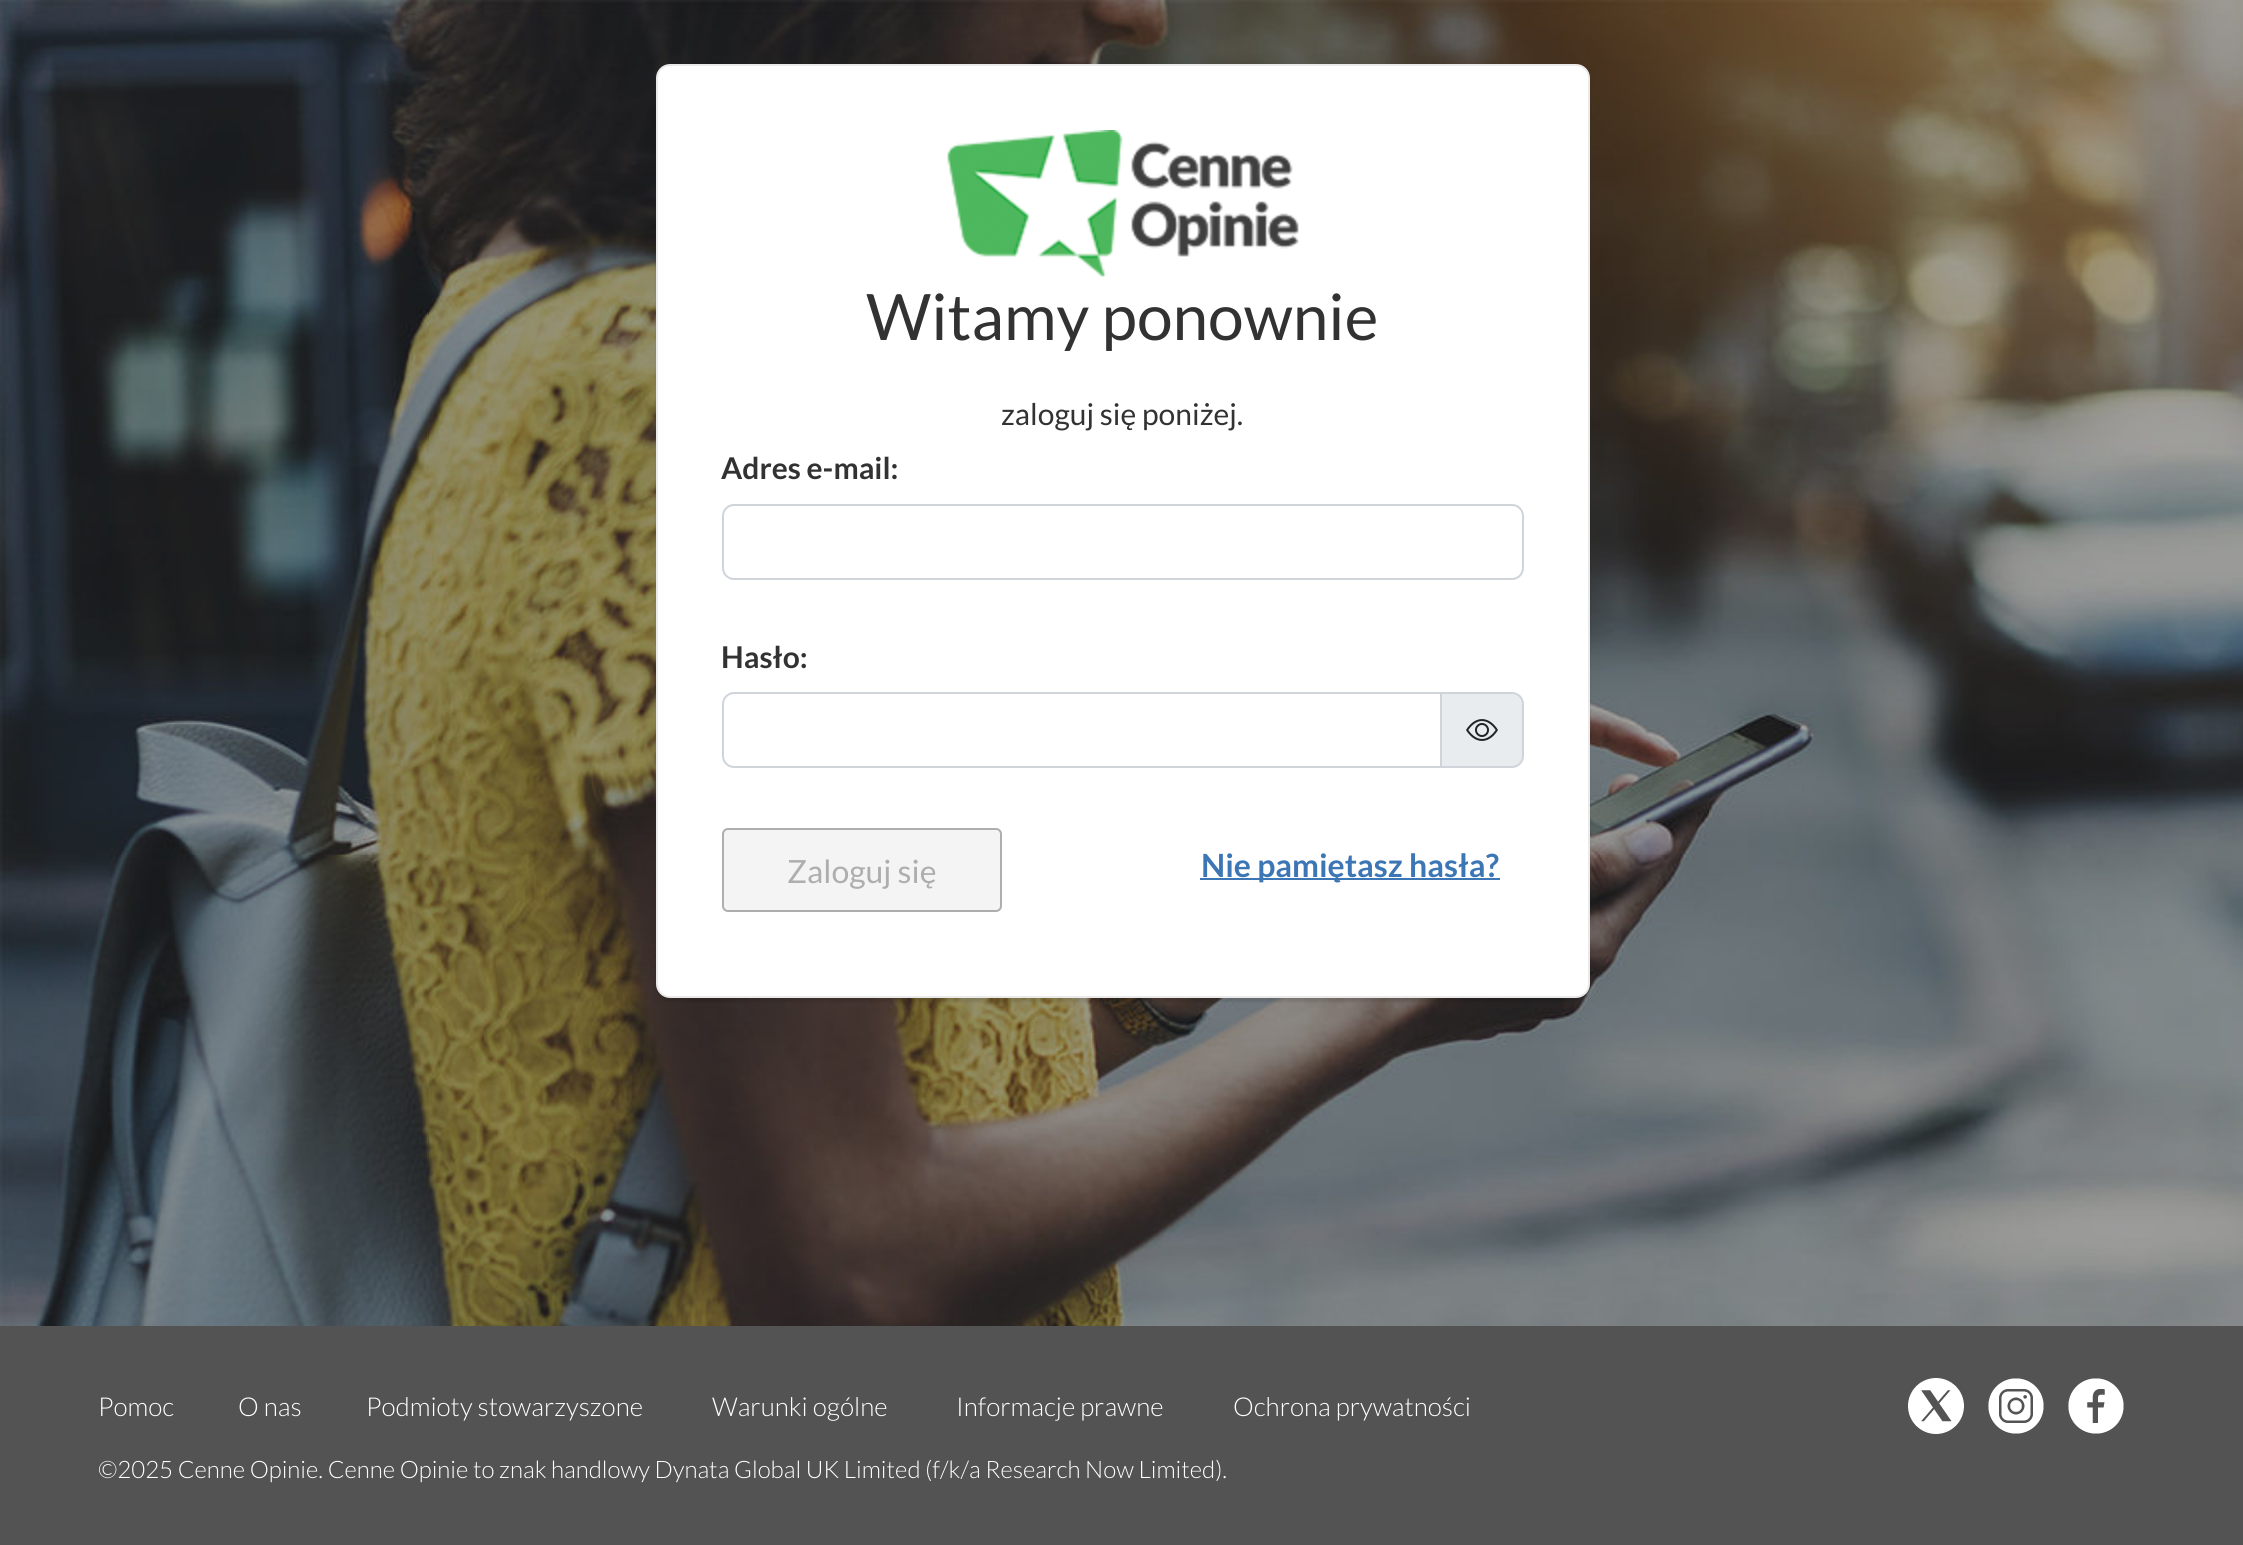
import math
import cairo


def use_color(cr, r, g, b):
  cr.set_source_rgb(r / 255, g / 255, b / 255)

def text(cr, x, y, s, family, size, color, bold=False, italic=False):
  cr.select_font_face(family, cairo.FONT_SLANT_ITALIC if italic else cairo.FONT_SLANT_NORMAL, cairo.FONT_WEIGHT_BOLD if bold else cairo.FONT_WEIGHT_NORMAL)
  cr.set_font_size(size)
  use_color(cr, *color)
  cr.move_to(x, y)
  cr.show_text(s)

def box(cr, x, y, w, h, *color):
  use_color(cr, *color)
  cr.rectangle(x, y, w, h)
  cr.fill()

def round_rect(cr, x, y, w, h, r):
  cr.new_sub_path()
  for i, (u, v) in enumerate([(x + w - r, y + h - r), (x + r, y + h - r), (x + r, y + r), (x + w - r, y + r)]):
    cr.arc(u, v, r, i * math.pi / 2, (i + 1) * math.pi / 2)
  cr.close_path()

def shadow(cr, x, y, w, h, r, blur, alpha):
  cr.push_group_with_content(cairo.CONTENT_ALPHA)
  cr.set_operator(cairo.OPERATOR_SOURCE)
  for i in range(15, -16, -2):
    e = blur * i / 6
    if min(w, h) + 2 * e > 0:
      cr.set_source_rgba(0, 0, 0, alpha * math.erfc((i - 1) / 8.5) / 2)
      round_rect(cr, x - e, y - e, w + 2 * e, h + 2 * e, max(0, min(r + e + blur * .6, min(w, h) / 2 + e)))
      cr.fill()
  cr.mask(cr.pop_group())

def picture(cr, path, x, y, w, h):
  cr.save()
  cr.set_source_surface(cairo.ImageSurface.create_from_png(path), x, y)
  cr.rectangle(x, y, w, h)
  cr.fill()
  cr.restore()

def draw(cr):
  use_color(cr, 255, 255, 255)
  cr.paint()
  picture(cr, "img_01.png", 0, 0, 2243, 1326)
  use_color(cr, 0, 0, 0)
  shadow(cr, 656, 68, 934, 934, 14, 1, 0.1)
  use_color(cr, 255, 255, 255)
  round_rect(cr, 657, 65, 932, 932, 13)
  cr.fill_preserve()
  use_color(cr, 234, 234, 234)
  cr.stroke()
  picture(cr, "img_02.png", 947, 130, 352, 147)
  round_rect(cr, 723, 505, 800, 74, 11)
  use_color(cr, 206, 212, 218)
  cr.stroke()
  use_color(cr, 233, 236, 239)
  cr.new_path()
  cr.move_to(1441, 693)
  cr.line_to(1512, 693)
  cr.curve_to(1518, 693, 1523, 698, 1523, 704)
  cr.line_to(1523, 756)
  cr.curve_to(1523, 762, 1518, 767, 1512, 767)
  cr.line_to(1441, 767)
  cr.close_path()
  cr.fill_preserve()
  use_color(cr, 206, 212, 218)
  cr.stroke()
  cr.new_path()
  cr.move_to(734, 693)
  cr.line_to(1441, 693)
  cr.line_to(1441, 767)
  cr.line_to(734, 767)
  cr.curve_to(728, 767, 723, 762, 723, 756)
  cr.line_to(723, 704)
  cr.curve_to(723, 698, 728, 693, 734, 693)
  cr.close_path()
  cr.stroke()
  picture(cr, "img_03.png", 1466, 719, 32, 22)
  use_color(cr, 244, 244, 244)
  round_rect(cr, 723, 829, 278, 82, 5)
  cr.fill_preserve()
  use_color(cr, 174, 174, 174)
  cr.stroke()
  box(cr, 1200, 878, 300, 2, 60, 118, 180)
  box(cr, 0, 1326, 2243, 219, 83, 83, 83)
  picture(cr, "img_04.png", 1908, 1378, 56, 56)
  picture(cr, "img_05.png", 1988, 1378, 56, 56)
  picture(cr, "img_06.png", 2068, 1378, 56, 56)
  text(cr, 866, 340, "Witamy ponownie", "Lato", 64, (50, 50, 50))
  text(cr, 1001, 425, "zaloguj się poniżej.", "Lato", 30, (50, 50, 50))
  text(cr, 721, 479, "Adres e-mail:", "Lato", 30, (50, 50, 50), bold=True)
  text(cr, 721, 668, "Hasło:", "Lato", 30, (50, 50, 50), bold=True)
  text(cr, 787, 883, "Zaloguj się", "Lato", 32, (174, 174, 174))
  text(cr, 1201, 877, "Nie pamiętasz hasła?", "Lato", 32, (60, 118, 180), bold=True)
  text(cr, 98, 1416, "Pomoc", "Lato Light", 26, (255, 255, 255))
  text(cr, 238, 1416, "O nas", "Lato Light", 26, (255, 255, 255))
  text(cr, 366, 1416, "Podmioty stowarzyszone", "Lato Light", 26, (255, 255, 255))
  text(cr, 712, 1416, "Warunki ogólne", "Lato Light", 26, (255, 255, 255))
  text(cr, 956, 1416, "Informacje prawne", "Lato Light", 26, (255, 255, 255))
  text(cr, 1233, 1416, "Ochrona prywatności", "Lato Light", 26, (255, 255, 255))
  text(cr, 98, 1478, "©2025 Cenne Opinie. Cenne Opinie to znak handlowy Dynata Global UK Limited (f/k/a Research Now Limited).", "Lato Light", 24, (255, 255, 255))


surface = cairo.ImageSurface(cairo.FORMAT_RGB24, 2243, 1545)
cr = cairo.Context(surface)
options = cairo.FontOptions()
options.set_hint_metrics(cairo.HINT_METRICS_OFF)
options.set_hint_style(cairo.HINT_STYLE_NONE)
cr.set_font_options(options)
cr.set_miter_limit(4)
draw(cr)
surface.write_to_png("out.png")
